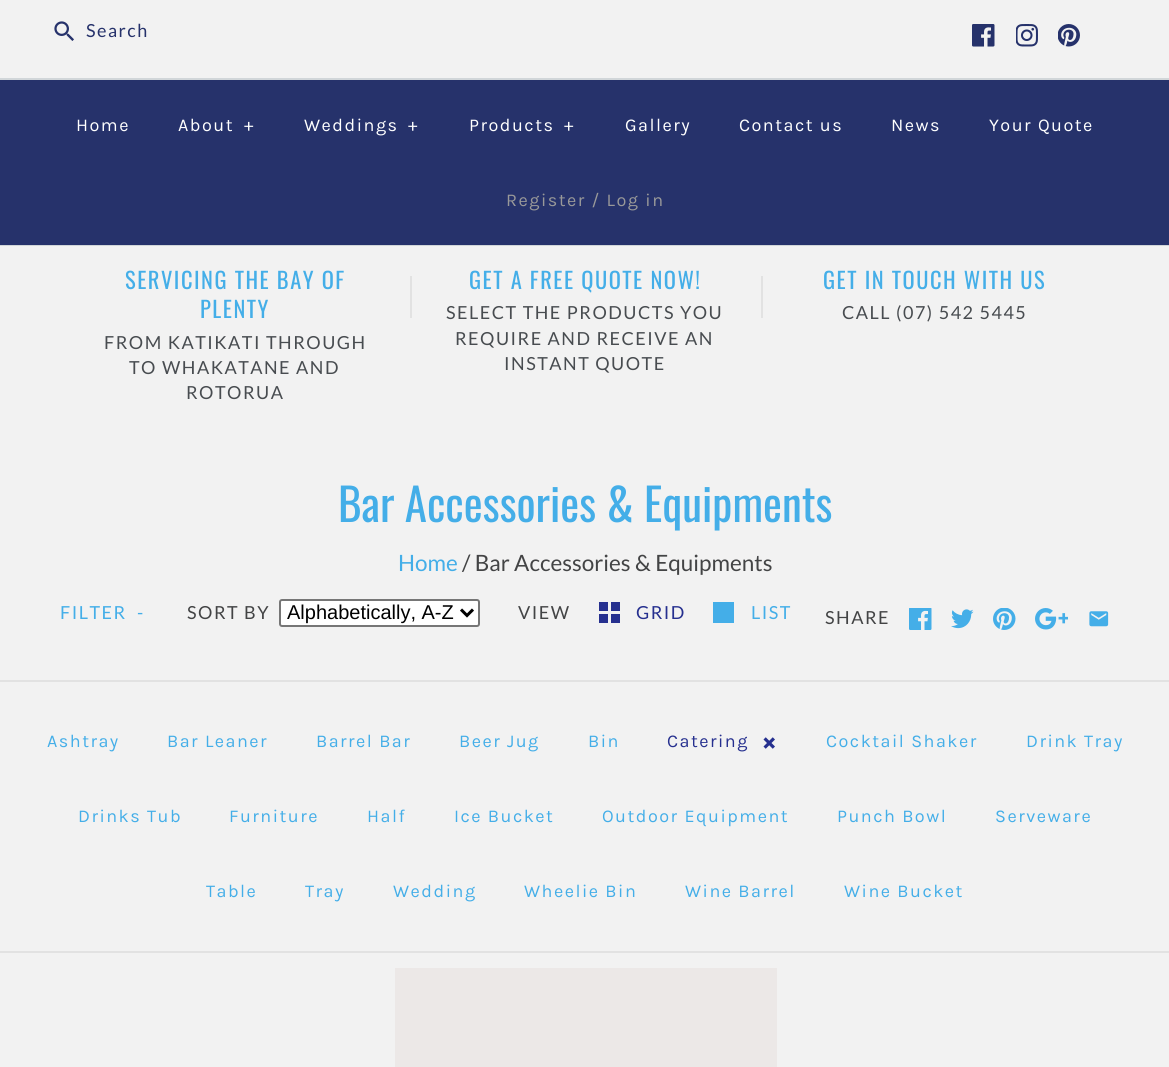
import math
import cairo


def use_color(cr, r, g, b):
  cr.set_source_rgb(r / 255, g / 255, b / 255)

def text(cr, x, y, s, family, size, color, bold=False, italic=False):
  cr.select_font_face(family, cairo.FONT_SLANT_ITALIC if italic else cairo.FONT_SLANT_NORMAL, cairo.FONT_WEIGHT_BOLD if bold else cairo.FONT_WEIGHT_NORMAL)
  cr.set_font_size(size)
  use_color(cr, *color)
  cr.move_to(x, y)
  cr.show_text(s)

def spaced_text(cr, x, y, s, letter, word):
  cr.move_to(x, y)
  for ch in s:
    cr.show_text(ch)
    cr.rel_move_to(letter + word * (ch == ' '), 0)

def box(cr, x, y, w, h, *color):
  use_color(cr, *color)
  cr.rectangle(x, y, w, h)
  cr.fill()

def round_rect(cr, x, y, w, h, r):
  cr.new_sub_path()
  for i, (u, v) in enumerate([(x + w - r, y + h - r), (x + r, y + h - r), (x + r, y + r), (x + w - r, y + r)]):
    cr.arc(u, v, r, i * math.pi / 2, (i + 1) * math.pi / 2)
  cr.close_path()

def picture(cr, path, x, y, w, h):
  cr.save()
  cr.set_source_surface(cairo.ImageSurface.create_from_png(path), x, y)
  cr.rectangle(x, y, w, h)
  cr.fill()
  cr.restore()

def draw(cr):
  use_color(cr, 242, 242, 242)
  cr.paint()
  picture(cr, "img_01.png", 54, 21, 20, 20)
  picture(cr, "img_02.png", 972, 24, 23, 23)
  picture(cr, "img_03.png", 1016, 24, 22, 23)
  picture(cr, "img_04.png", 1058, 24, 22, 23)
  box(cr, 0, 245, 1169, 1, 209, 214, 217)
  box(cr, 0, 80, 1169, 165, 38, 50, 107)
  box(cr, 0, 78, 1169, 2, 209, 214, 217)
  box(cr, 410, 276, 2, 42, 226, 226, 226)
  box(cr, 761, 276, 2, 42, 226, 226, 226)
  use_color(cr, 255, 255, 255)
  round_rect(cr, 280, 600, 199, 26, 2)
  cr.fill_preserve()
  use_color(cr, 118, 118, 118)
  cr.stroke()
  cr.new_path()
  cr.move_to(461, 609.5)
  cr.line_to(467, 615.5)
  cr.line_to(473, 609.5)
  use_color(cr, 0, 0, 0)
  cr.set_line_width(3)
  cr.stroke()
  box(cr, 599, 602, 9, 9, 38, 48, 143)
  box(cr, 611, 602, 9, 9, 38, 48, 143)
  box(cr, 599, 614, 9, 9, 38, 48, 143)
  box(cr, 611, 614, 9, 9, 38, 48, 143)
  box(cr, 713, 602, 21, 21, 68, 174, 232)
  picture(cr, "img_05.png", 909, 608, 23, 22)
  picture(cr, "img_06.png", 951, 609, 23, 20)
  picture(cr, "img_07.png", 993, 608, 23, 22)
  picture(cr, "img_08.png", 1035, 608, 33, 22)
  picture(cr, "img_09.png", 1089, 611, 20, 16)
  box(cr, 0, 680, 1169, 2, 226, 226, 226)
  box(cr, 0, 951, 1169, 2, 226, 226, 226)
  box(cr, 395, 968, 382, 99, 236, 232, 231)
  cr.select_font_face("Lato")
  cr.set_font_size(18)
  use_color(cr, 38, 50, 107)
  spaced_text(cr, 86, 37, "Search", 1.5, 0)
  cr.select_font_face("Karla")
  use_color(cr, 255, 255, 255)
  spaced_text(cr, 76, 131, "Home", 1.5, 0)
  spaced_text(cr, 178, 131, "About", 1.5, 0)
  spaced_text(cr, 244, 131, "+", 1.5, 0)
  spaced_text(cr, 304, 131, "Weddings", 1.5, 0)
  spaced_text(cr, 408, 131, "+", 1.5, 0)
  spaced_text(cr, 469, 131, "Products", 1.5, 0)
  spaced_text(cr, 564, 131, "+", 1.5, 0)
  spaced_text(cr, 625, 131, "Gallery", 1.5, 0)
  spaced_text(cr, 739, 131, "Contact us", 1.5, 0)
  spaced_text(cr, 891, 131, "News", 1.5, 0)
  spaced_text(cr, 989, 131, "Your Quote", 1.5, 0)
  use_color(cr, 153, 153, 153)
  spaced_text(cr, 506, 206, "Register / Log in", 1.5, 0)
  cr.select_font_face("Oswald")
  cr.set_font_size(22.5)
  use_color(cr, 68, 174, 232)
  spaced_text(cr, 125, 289, "SERVICING THE BAY OF", 1.5, 0)
  spaced_text(cr, 200, 318, "PLENTY", 1.5, 0)
  cr.select_font_face("Lato")
  cr.set_font_size(18)
  use_color(cr, 72, 76, 80)
  spaced_text(cr, 104, 349, "FROM KATIKATI THROUGH", 1.5, 0)
  spaced_text(cr, 129, 374, "TO WHAKATANE AND", 1.5, 0)
  spaced_text(cr, 186, 399, "ROTORUA", 1.5, 0)
  cr.select_font_face("Oswald")
  cr.set_font_size(22.5)
  use_color(cr, 68, 174, 232)
  spaced_text(cr, 469, 289, "GET A FREE QUOTE NOW!", 1.5, 0)
  cr.select_font_face("Lato")
  cr.set_font_size(18)
  use_color(cr, 72, 76, 80)
  spaced_text(cr, 446, 319, "SELECT THE PRODUCTS YOU", 1.5, 0)
  spaced_text(cr, 455, 345, "REQUIRE AND RECEIVE AN", 1.5, 0)
  spaced_text(cr, 504, 370, "INSTANT QUOTE", 1.5, 0)
  cr.select_font_face("Oswald")
  cr.set_font_size(22.5)
  use_color(cr, 68, 174, 232)
  spaced_text(cr, 823, 289, "GET IN TOUCH WITH US", 1.5, 0)
  cr.select_font_face("Lato")
  cr.set_font_size(18)
  use_color(cr, 72, 76, 80)
  spaced_text(cr, 842, 319, "CALL (07) 542 5445", 1.5, 0)
  text(cr, 338, 522, "Bar Accessories & Equipments", "Oswald", 45, (68, 174, 232))
  text(cr, 398, 571, "Home", "Lato", 22.5, (68, 174, 232))
  text(cr, 462, 571, "/ Bar Accessories & Equipments", "Lato", 22.5, (67, 68, 69))
  cr.set_font_size(18)
  use_color(cr, 68, 174, 232)
  spaced_text(cr, 60, 619, "FILTER", 1.5, 0)
  spaced_text(cr, 137, 619, "-", 1.5, 0)
  use_color(cr, 67, 68, 69)
  spaced_text(cr, 187, 619, "SORT BY", 1.5, 0)
  text(cr, 287, 619, "Alphabetically, A-Z", "Liberation Sans", 20, (0, 0, 0))
  cr.select_font_face("Lato")
  cr.set_font_size(18)
  use_color(cr, 67, 68, 69)
  spaced_text(cr, 518, 619, "VIEW", 1.5, 0)
  use_color(cr, 38, 48, 143)
  spaced_text(cr, 636, 619, "GRID", 1.5, 0)
  use_color(cr, 68, 174, 232)
  spaced_text(cr, 751, 619, "LIST", 1.5, 0)
  use_color(cr, 67, 68, 69)
  spaced_text(cr, 825, 624, "SHARE", 1.5, 0)
  cr.select_font_face("Karla")
  use_color(cr, 68, 174, 232)
  spaced_text(cr, 47, 747, "Ashtray", 1.5, 0)
  spaced_text(cr, 167, 747, "Bar Leaner", 1.5, 0)
  spaced_text(cr, 316, 747, "Barrel Bar", 1.5, 0)
  spaced_text(cr, 459, 747, "Beer Jug", 1.5, 0)
  spaced_text(cr, 588, 747, "Bin", 1.5, 0)
  use_color(cr, 38, 48, 143)
  spaced_text(cr, 667, 747, "Catering", 1.5, 0)
  cr.select_font_face("Karla", cairo.FONT_SLANT_NORMAL, cairo.FONT_WEIGHT_BOLD)
  cr.set_font_size(27)
  spaced_text(cr, 762, 750, "×", 1.5, 0)
  cr.select_font_face("Karla")
  cr.set_font_size(18)
  use_color(cr, 68, 174, 232)
  spaced_text(cr, 826, 747, "Cocktail Shaker", 1.5, 0)
  spaced_text(cr, 1026, 747, "Drink Tray", 1.5, 0)
  spaced_text(cr, 78, 822, "Drinks Tub", 1.5, 0)
  spaced_text(cr, 229, 822, "Furniture", 1.5, 0)
  spaced_text(cr, 367, 822, "Half", 1.5, 0)
  spaced_text(cr, 454, 822, "Ice Bucket", 1.5, 0)
  spaced_text(cr, 602, 822, "Outdoor Equipment", 1.5, 0)
  spaced_text(cr, 837, 822, "Punch Bowl", 1.5, 0)
  spaced_text(cr, 995, 822, "Serveware", 1.5, 0)
  spaced_text(cr, 206, 897, "Table", 1.5, 0)
  spaced_text(cr, 305, 897, "Tray", 1.5, 0)
  spaced_text(cr, 393, 897, "Wedding", 1.5, 0)
  spaced_text(cr, 524, 897, "Wheelie Bin", 1.5, 0)
  spaced_text(cr, 685, 897, "Wine Barrel", 1.5, 0)
  spaced_text(cr, 844, 897, "Wine Bucket", 1.5, 0)


surface = cairo.ImageSurface(cairo.FORMAT_RGB24, 1169, 1067)
cr = cairo.Context(surface)
options = cairo.FontOptions()
options.set_hint_metrics(cairo.HINT_METRICS_OFF)
options.set_hint_style(cairo.HINT_STYLE_NONE)
cr.set_font_options(options)
cr.set_miter_limit(4)
draw(cr)
surface.write_to_png("out.png")
